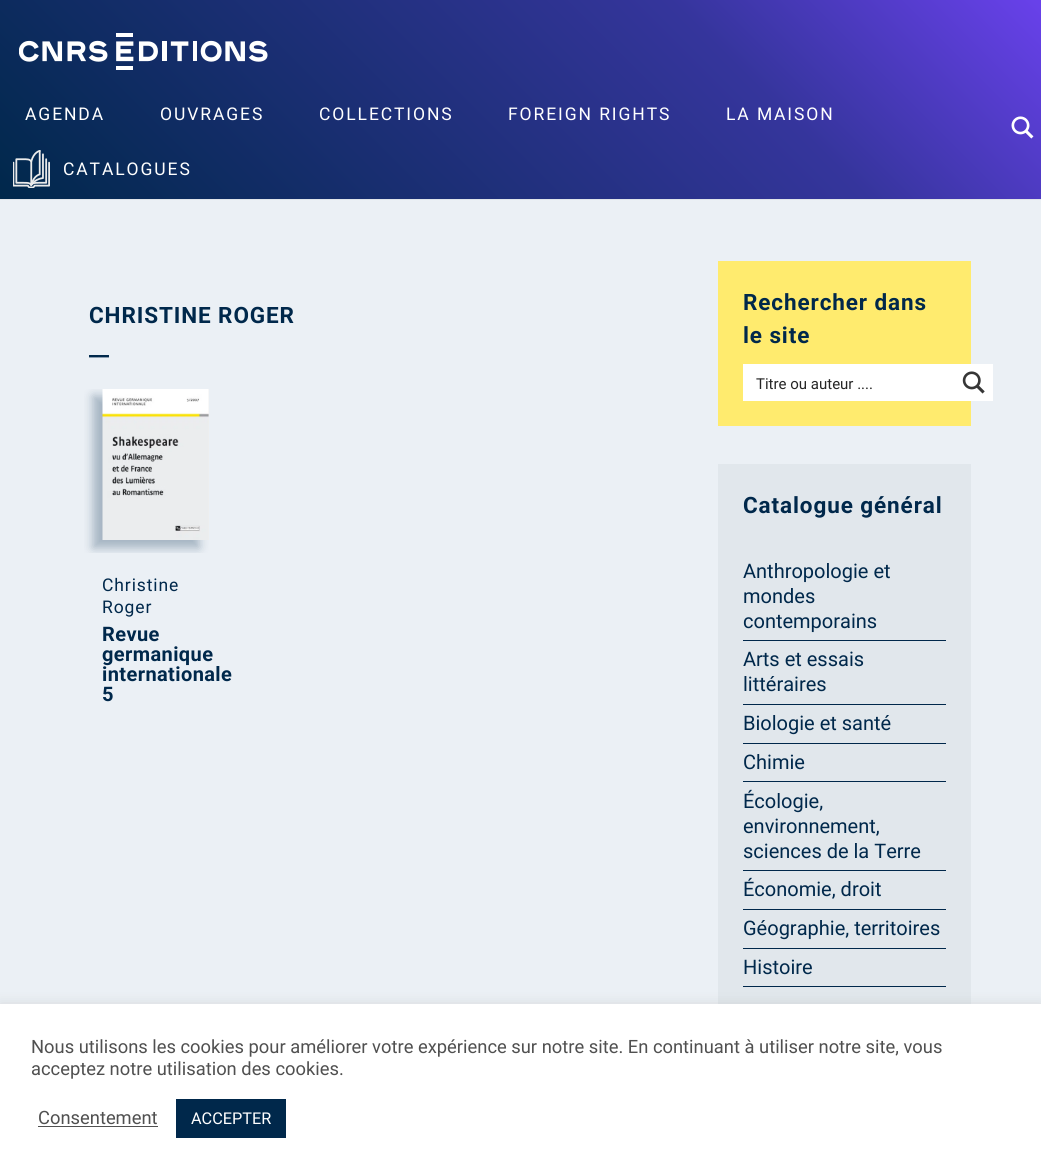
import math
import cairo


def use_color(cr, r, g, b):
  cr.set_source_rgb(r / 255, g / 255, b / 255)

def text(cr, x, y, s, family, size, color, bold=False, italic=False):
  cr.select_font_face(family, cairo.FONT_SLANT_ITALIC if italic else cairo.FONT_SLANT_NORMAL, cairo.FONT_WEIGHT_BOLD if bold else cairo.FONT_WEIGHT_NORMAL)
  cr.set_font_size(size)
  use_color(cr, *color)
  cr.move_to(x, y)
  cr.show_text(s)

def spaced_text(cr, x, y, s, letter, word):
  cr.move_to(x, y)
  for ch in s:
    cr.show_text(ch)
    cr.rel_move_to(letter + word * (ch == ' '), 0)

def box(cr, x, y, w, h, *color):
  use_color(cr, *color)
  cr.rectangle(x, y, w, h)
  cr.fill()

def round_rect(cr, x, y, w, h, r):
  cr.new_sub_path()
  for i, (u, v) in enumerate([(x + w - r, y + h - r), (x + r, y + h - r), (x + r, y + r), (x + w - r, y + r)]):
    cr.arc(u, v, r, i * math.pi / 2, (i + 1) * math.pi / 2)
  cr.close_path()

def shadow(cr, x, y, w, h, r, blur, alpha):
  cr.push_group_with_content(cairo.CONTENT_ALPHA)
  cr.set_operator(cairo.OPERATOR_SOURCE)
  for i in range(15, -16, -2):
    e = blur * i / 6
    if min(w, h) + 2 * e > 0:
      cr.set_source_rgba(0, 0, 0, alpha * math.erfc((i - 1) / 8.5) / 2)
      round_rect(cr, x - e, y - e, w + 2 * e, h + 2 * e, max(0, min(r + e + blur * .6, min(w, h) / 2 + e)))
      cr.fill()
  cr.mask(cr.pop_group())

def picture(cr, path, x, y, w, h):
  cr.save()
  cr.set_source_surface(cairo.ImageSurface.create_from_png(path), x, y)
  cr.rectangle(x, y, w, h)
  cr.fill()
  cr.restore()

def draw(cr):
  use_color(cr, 235, 240, 245)
  cr.paint()
  box(cr, 0, 199, 1041, 1, 223, 228, 233)
  gradient = cairo.LinearGradient(211, 409, 831, -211)
  gradient.add_color_stop_rgba(0, 0, 0.157, 0.294, 1)
  gradient.add_color_stop_rgba(0.7, 0.208, 0.208, 0.612, 1)
  gradient.add_color_stop_rgba(1, 0.412, 0.255, 0.922, 1)
  cr.set_source(gradient)
  cr.rectangle(0, 0, 1041, 199)
  cr.fill()
  picture(cr, "img_01.png", 19, 33, 249, 37)
  picture(cr, "img_02.png", 13, 150, 37, 38)
  picture(cr, "img_03.png", 1011, 116, 23, 23)
  cr.save()
  cr.rectangle(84, 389, 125, 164)
  cr.clip()
  use_color(cr, 0, 40, 75)
  shadow(cr, 93, 396, 106, 152, 0, 5, 0.3)
  cr.restore()
  box(cr, 208, 389, 1, 151, 240, 240, 240)
  picture(cr, "img_04.png", 102, 389, 107, 151)
  box(cr, 718, 261, 253, 165, 255, 235, 110)
  box(cr, 743, 364, 250, 37, 255, 255, 255)
  picture(cr, "img_05.png", 962, 371, 23, 23)
  box(cr, 718, 464, 253, 540, 225, 231, 236)
  box(cr, 743, 640, 203, 1, 0, 40, 75)
  box(cr, 743, 704, 203, 1, 0, 40, 75)
  box(cr, 743, 743, 203, 1, 0, 40, 75)
  box(cr, 743, 781, 203, 1, 0, 40, 75)
  box(cr, 743, 870, 203, 1, 0, 40, 75)
  box(cr, 743, 909, 203, 1, 0, 40, 75)
  box(cr, 743, 948, 203, 1, 0, 40, 75)
  box(cr, 743, 986, 203, 1, 0, 40, 75)
  use_color(cr, 172, 171, 171)
  shadow(cr, 0, 1003, 1041, 171, 0, 6, 0.3)
  box(cr, 0, 1004, 1041, 170, 255, 255, 255)
  box(cr, 38, 1126, 120, 1, 80, 80, 80)
  box(cr, 176, 1099, 110, 39, 0, 40, 75)
  cr.select_font_face("Roboto")
  cr.set_font_size(17.5)
  use_color(cr, 255, 255, 255)
  spaced_text(cr, 25, 120, "AGENDA", 1.9, 0)
  spaced_text(cr, 160, 120, "OUVRAGES", 1.9, 0)
  spaced_text(cr, 319, 120, "COLLECTIONS", 1.9, 0)
  spaced_text(cr, 508, 120, "FOREIGN RIGHTS", 1.9, 0)
  spaced_text(cr, 726, 120, "LA MAISON", 1.9, 0)
  spaced_text(cr, 63, 175, "CATALOGUES", 1.9, 0)
  cr.select_font_face("Roboto", cairo.FONT_SLANT_NORMAL, cairo.FONT_WEIGHT_BOLD)
  cr.set_font_size(22.5)
  use_color(cr, 0, 40, 75)
  spaced_text(cr, 89, 323, "CHRISTINE ROGER", 0.9, 0)
  text(cr, 89, 355, "__", "Roboto", 22.5, (0, 40, 75), bold=True)
  cr.select_font_face("Roboto")
  cr.set_font_size(17.5)
  spaced_text(cr, 102, 591, "Christine", 0.9, 0)
  spaced_text(cr, 102, 613, "Roger", 0.9, 0)
  cr.select_font_face("Roboto", cairo.FONT_SLANT_NORMAL, cairo.FONT_WEIGHT_BOLD)
  cr.set_font_size(20)
  spaced_text(cr, 102, 641, "Revue", 0.4, 0)
  spaced_text(cr, 102, 661, "germanique", 0.4, 0)
  spaced_text(cr, 102, 681, "internationale", 0.4, 0)
  spaced_text(cr, 102, 701, "5", 0.4, 0)
  cr.set_font_size(22.5)
  spaced_text(cr, 743, 310, "Rechercher dans", 0.9, 0)
  spaced_text(cr, 743, 343, "le site", 0.9, 0)
  text(cr, 756, 389, "Titre ou auteur ....", "Roboto", 15, (38, 38, 38))
  cr.select_font_face("Roboto", cairo.FONT_SLANT_NORMAL, cairo.FONT_WEIGHT_BOLD)
  cr.set_font_size(22.5)
  use_color(cr, 0, 40, 75)
  spaced_text(cr, 743, 513, "Catalogue général", 0.9, 0)
  text(cr, 743, 578, "Anthropologie et", "Roboto", 20, (0, 40, 75))
  text(cr, 743, 603, "mondes", "Roboto", 20, (0, 40, 75))
  text(cr, 743, 628, "contemporains", "Roboto", 20, (0, 40, 75))
  text(cr, 743, 666, "Arts et essais", "Roboto", 20, (0, 40, 75))
  text(cr, 743, 691, "littéraires", "Roboto", 20, (0, 40, 75))
  text(cr, 743, 730, "Biologie et santé", "Roboto", 20, (0, 40, 75))
  text(cr, 743, 769, "Chimie", "Roboto", 20, (0, 40, 75))
  text(cr, 743, 808, "Écologie,", "Roboto", 20, (0, 40, 75))
  text(cr, 743, 833, "environnement,", "Roboto", 20, (0, 40, 75))
  text(cr, 743, 858, "sciences de la Terre", "Roboto", 20, (0, 40, 75))
  text(cr, 743, 896, "Économie, droit", "Roboto", 20, (0, 40, 75))
  text(cr, 743, 935, "Géographie, territoires", "Roboto", 20, (0, 40, 75))
  text(cr, 743, 974, "Histoire", "Roboto", 20, (0, 40, 75))
  text(cr, 31, 1053, "Nous utilisons les cookies pour améliorer votre expérience sur notre site. En continuant à utiliser notre site, vous", "Roboto", 18.35, (80, 80, 80))
  text(cr, 31, 1075, "acceptez notre utilisation des cookies.", "Roboto", 18.35, (80, 80, 80))
  text(cr, 38, 1124, "Consentement", "Roboto", 18.35, (80, 80, 80))
  text(cr, 191, 1124, "ACCEPTER", "Roboto", 16.25, (255, 255, 255))


surface = cairo.ImageSurface(cairo.FORMAT_RGB24, 1041, 1174)
cr = cairo.Context(surface)
options = cairo.FontOptions()
options.set_hint_metrics(cairo.HINT_METRICS_OFF)
options.set_hint_style(cairo.HINT_STYLE_NONE)
cr.set_font_options(options)
cr.set_miter_limit(4)
draw(cr)
surface.write_to_png("out.png")
